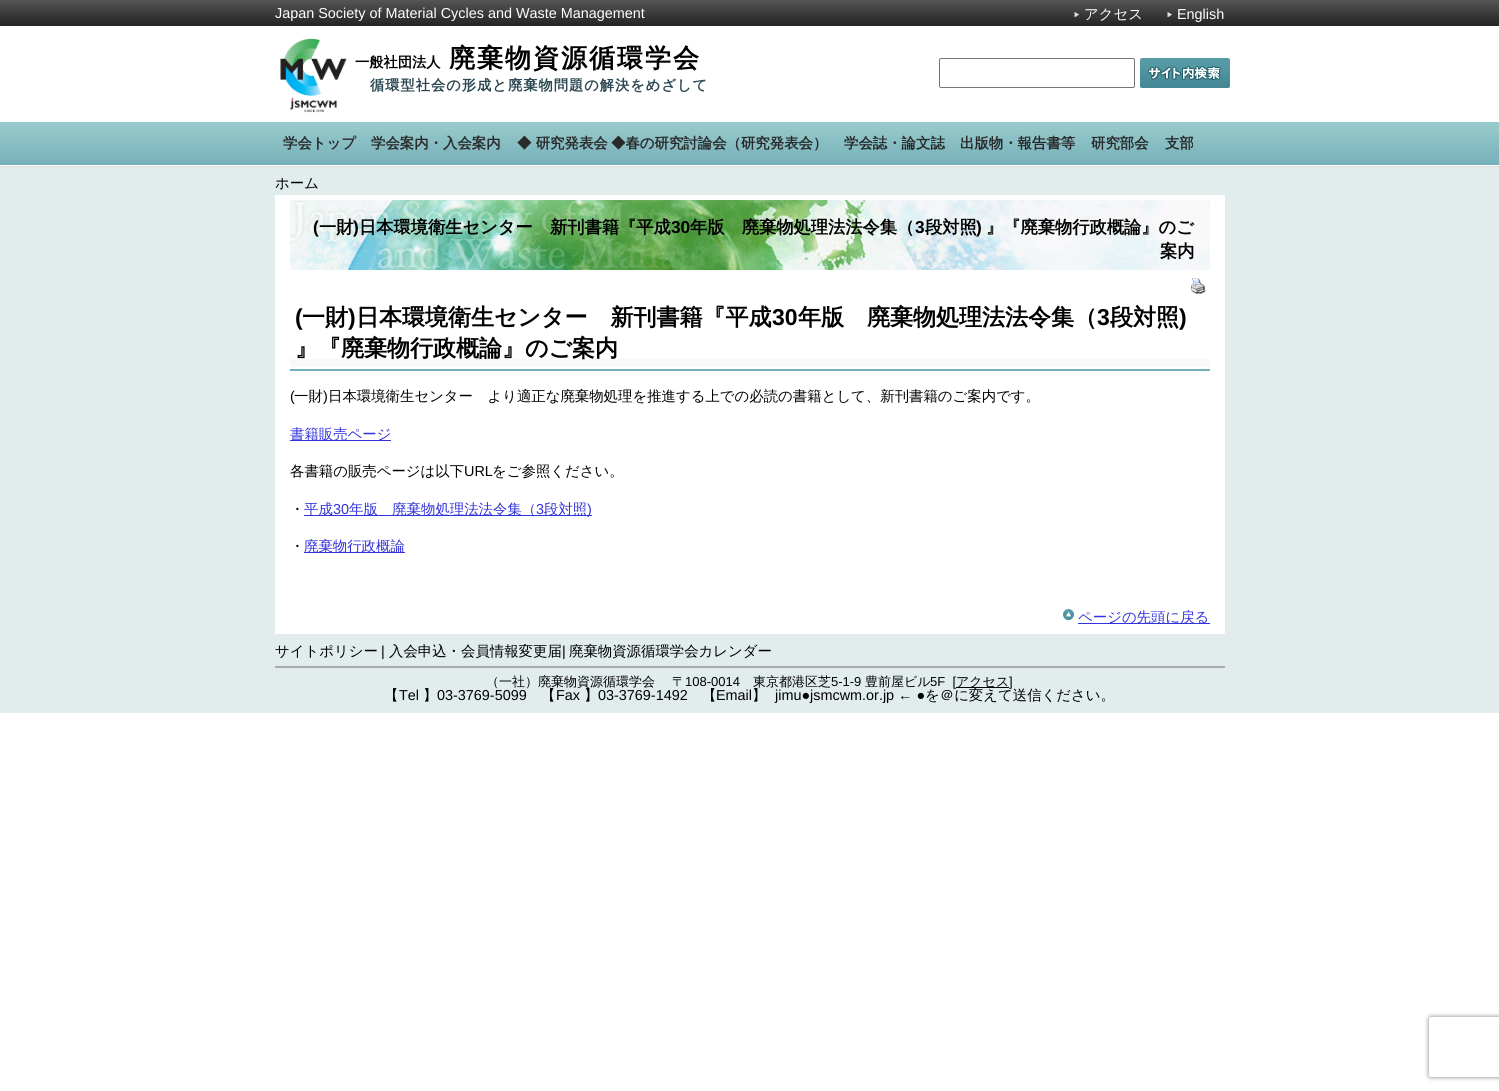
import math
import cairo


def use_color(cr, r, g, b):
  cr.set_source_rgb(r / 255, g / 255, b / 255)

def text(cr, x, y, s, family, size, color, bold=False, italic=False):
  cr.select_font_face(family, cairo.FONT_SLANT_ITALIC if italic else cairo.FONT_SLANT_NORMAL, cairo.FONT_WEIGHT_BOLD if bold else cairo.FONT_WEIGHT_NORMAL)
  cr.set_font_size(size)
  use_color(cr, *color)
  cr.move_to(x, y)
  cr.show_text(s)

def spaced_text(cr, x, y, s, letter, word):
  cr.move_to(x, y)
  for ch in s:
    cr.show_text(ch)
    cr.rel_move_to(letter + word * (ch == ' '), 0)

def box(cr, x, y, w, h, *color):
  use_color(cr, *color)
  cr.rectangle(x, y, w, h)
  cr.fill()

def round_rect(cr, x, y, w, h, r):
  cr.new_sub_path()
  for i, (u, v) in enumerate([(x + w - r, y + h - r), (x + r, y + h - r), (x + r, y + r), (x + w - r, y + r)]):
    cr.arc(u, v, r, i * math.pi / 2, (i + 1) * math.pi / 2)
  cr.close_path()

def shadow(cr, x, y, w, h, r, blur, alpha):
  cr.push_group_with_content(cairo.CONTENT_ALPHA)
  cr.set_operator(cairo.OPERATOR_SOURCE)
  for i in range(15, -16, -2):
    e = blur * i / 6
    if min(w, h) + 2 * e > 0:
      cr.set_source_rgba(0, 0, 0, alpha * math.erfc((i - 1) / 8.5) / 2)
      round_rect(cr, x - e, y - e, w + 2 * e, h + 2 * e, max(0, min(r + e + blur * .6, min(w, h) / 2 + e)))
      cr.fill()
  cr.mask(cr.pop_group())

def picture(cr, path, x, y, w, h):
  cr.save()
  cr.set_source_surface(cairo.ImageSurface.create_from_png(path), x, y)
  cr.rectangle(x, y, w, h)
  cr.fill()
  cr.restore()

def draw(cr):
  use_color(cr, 255, 255, 255)
  cr.paint()
  gradient = cairo.LinearGradient(750, 0, 750, 26)
  gradient.add_color_stop_rgba(0, 0.333, 0.333, 0.333, 1)
  gradient.add_color_stop_rgba(1, 0.137, 0.137, 0.137, 1)
  cr.set_source(gradient)
  cr.rectangle(0, 0, 1499, 26)
  cr.fill()
  picture(cr, "img_01.png", 1074, 12, 5, 5)
  picture(cr, "img_01.png", 1167, 12, 5, 5)
  picture(cr, "img_02.png", 280, 38, 67, 75)
  round_rect(cr, 939.5, 58.5, 195, 29, 1.5)
  use_color(cr, 118, 118, 118)
  cr.set_line_width(1)
  cr.stroke()
  picture(cr, "img_03.png", 1140, 58, 90, 30)
  gradient = cairo.LinearGradient(750, 122, 750, 165)
  gradient.add_color_stop_rgba(0, 0.6, 0.8, 0.8, 1)
  gradient.add_color_stop_rgba(1, 0.463, 0.69, 0.733, 1)
  cr.set_source(gradient)
  cr.rectangle(0, 122, 1499, 43)
  cr.fill()
  picture(cr, "img_04.png", 0, 167, 1499, 546)
  box(cr, 0, 166, 1499, 1, 221, 221, 221)
  box(cr, 275, 195, 950, 439, 255, 255, 255)
  picture(cr, "img_05.png", 290, 200, 920, 70)
  picture(cr, "img_06.png", 1191, 278, 15, 16)
  box(cr, 290, 359, 920, 8, 249, 249, 249)
  box(cr, 290, 369, 920, 2, 115, 175, 185)
  box(cr, 290, 440, 101, 1, 51, 51, 221)
  box(cr, 304, 515, 288, 1, 51, 51, 221)
  box(cr, 304, 552, 101, 1, 51, 51, 221)
  picture(cr, "img_07.png", 1063, 609, 11, 11)
  box(cr, 1078, 623, 132, 1, 51, 51, 221)
  box(cr, 275, 666, 950, 2, 170, 170, 170)
  box(cr, 956, 687, 53, 1, 0, 0, 0)
  cr.save()
  cr.set_fill_rule(cairo.FILL_RULE_EVEN_ODD)
  cr.new_path()
  cr.move_to(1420, 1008)
  cr.line_to(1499, 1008)
  cr.line_to(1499, 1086)
  cr.line_to(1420, 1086)
  cr.close_path()
  cr.move_to(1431, 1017)
  cr.line_to(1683, 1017)
  cr.curve_to(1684, 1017, 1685, 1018, 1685, 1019)
  cr.line_to(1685, 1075)
  cr.curve_to(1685, 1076, 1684, 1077, 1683, 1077)
  cr.line_to(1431, 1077)
  cr.curve_to(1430, 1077, 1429, 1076, 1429, 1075)
  cr.line_to(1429, 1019)
  cr.curve_to(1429, 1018, 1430, 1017, 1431, 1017)
  cr.close_path()
  cr.clip()
  use_color(cr, 128, 128, 128)
  shadow(cr, 1429, 1017, 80, 60, 2, 2.5, 1)
  cr.restore()
  text(cr, 275, 18, "Japan Society of Material Cycles and Waste Management", "Liberation Sans", 14.4, (255, 255, 255))
  text(cr, 1084, 19, "アクセス", "WenQuanYi Zen Hei Medium", 14.4, (255, 255, 255))
  text(cr, 1177, 19, "English", "Liberation Sans", 14.4, (255, 255, 255))
  text(cr, 355, 67, "一般社団法人", "WenQuanYi Zen Hei", 14.25, (0, 0, 0), bold=True)
  cr.set_font_size(26)
  spaced_text(cr, 449, 67, "廃棄物資源循環学会", 2, 0)
  cr.set_font_size(14.25)
  use_color(cr, 42, 70, 80)
  spaced_text(cr, 370, 90, "循環型社会の形成と廃棄物問題の解決をめざして", 1, 0)
  text(cr, 283, 148, "学会トップ", "WenQuanYi Zen Hei", 14.4, (41, 42, 42), bold=True)
  text(cr, 371, 148, "学会案内・入会案内", "WenQuanYi Zen Hei", 14.4, (41, 42, 42), bold=True)
  text(cr, 517, 148, "◆ 研究発表会", "WenQuanYi Zen Hei", 14.4, (41, 42, 42), bold=True)
  text(cr, 611, 148, "◆春の研究討論会（研究発表会）", "WenQuanYi Zen Hei", 14.4, (41, 42, 42), bold=True)
  text(cr, 844, 148, "学会誌・論文誌", "WenQuanYi Zen Hei", 14.4, (41, 42, 42), bold=True)
  text(cr, 960, 148, "出版物・報告書等", "WenQuanYi Zen Hei", 14.4, (41, 42, 42), bold=True)
  text(cr, 1091, 148, "研究部会", "WenQuanYi Zen Hei", 14.4, (41, 42, 42), bold=True)
  text(cr, 1165, 148, "支部", "WenQuanYi Zen Hei", 14.4, (41, 42, 42), bold=True)
  text(cr, 275, 188, "ホーム", "WenQuanYi Zen Hei Medium", 14.4, (0, 0, 0))
  text(cr, 313, 233, "(", "Liberation Sans", 17.25, (0, 0, 0), bold=True)
  text(cr, 319, 233, "一財", "WenQuanYi Zen Hei", 17.25, (0, 0, 0), bold=True)
  text(cr, 353, 233, ")", "Liberation Sans", 17.25, (0, 0, 0), bold=True)
  text(cr, 359, 233, "日本環境衛生センター　新刊書籍『平成", "WenQuanYi Zen Hei", 17.25, (0, 0, 0), bold=True)
  text(cr, 671, 233, "30", "Liberation Sans", 17.25, (0, 0, 0), bold=True)
  text(cr, 690, 233, "年版　廃棄物処理法法令集（", "WenQuanYi Zen Hei", 17.25, (0, 0, 0), bold=True)
  text(cr, 915, 233, "3", "Liberation Sans", 17.25, (0, 0, 0), bold=True)
  text(cr, 925, 233, "段対照", "WenQuanYi Zen Hei", 17.25, (0, 0, 0), bold=True)
  text(cr, 976, 233, ")", "Liberation Sans", 17.25, (0, 0, 0), bold=True)
  text(cr, 986, 233, "』『廃棄物行政概論』のご", "WenQuanYi Zen Hei", 17.25, (0, 0, 0), bold=True)
  text(cr, 1160, 257, "案内", "WenQuanYi Zen Hei", 17.25, (0, 0, 0), bold=True)
  text(cr, 295, 325, "(", "Liberation Sans", 23, (0, 0, 0), bold=True)
  text(cr, 302, 325, "一財", "WenQuanYi Zen Hei", 23, (0, 0, 0), bold=True)
  text(cr, 348, 325, ")", "Liberation Sans", 23, (0, 0, 0), bold=True)
  text(cr, 356, 325, "日本環境衛生センター　新刊書籍『平成", "WenQuanYi Zen Hei", 23, (0, 0, 0), bold=True)
  text(cr, 772, 325, "30", "Liberation Sans", 23, (0, 0, 0), bold=True)
  text(cr, 798, 325, "年版　廃棄物処理法法令集（", "WenQuanYi Zen Hei", 23, (0, 0, 0), bold=True)
  text(cr, 1097, 325, "3", "Liberation Sans", 23, (0, 0, 0), bold=True)
  text(cr, 1110, 325, "段対照", "WenQuanYi Zen Hei", 23, (0, 0, 0), bold=True)
  text(cr, 1179, 325, ")", "Liberation Sans", 23, (0, 0, 0), bold=True)
  text(cr, 295, 356, "』『廃棄物行政概論』のご案内", "WenQuanYi Zen Hei", 23, (0, 0, 0), bold=True)
  text(cr, 290, 401, "(", "Liberation Sans", 14.4, (0, 0, 0))
  text(cr, 294, 401, "一財", "WenQuanYi Zen Hei Medium", 14.4, (0, 0, 0))
  text(cr, 323, 401, ")", "Liberation Sans", 14.4, (0, 0, 0))
  text(cr, 328, 401, "日本環境衛生センター　より適正な廃棄物処理を推進する上での必読の書籍として、新刊書籍のご案内です。", "WenQuanYi Zen Hei Medium", 14.4, (0, 0, 0))
  text(cr, 290, 439, "書籍販売ページ", "WenQuanYi Zen Hei Medium", 14.4, (51, 51, 221))
  text(cr, 290, 476, "各書籍の販売ページは以下", "WenQuanYi Zen Hei Medium", 14.4, (0, 0, 0))
  text(cr, 464, 476, "URL", "Liberation Sans", 14.4, (0, 0, 0))
  text(cr, 492, 476, "をご参照ください。", "WenQuanYi Zen Hei Medium", 14.4, (0, 0, 0))
  text(cr, 290, 514, "・", "WenQuanYi Zen Hei Medium", 14.4, (0, 0, 0))
  text(cr, 304, 514, "平成", "WenQuanYi Zen Hei Medium", 14.4, (51, 51, 221))
  text(cr, 333, 514, "30", "Liberation Sans", 14.4, (51, 51, 221))
  text(cr, 349, 514, "年版　廃棄物処理法法令集（", "WenQuanYi Zen Hei Medium", 14.4, (51, 51, 221))
  text(cr, 536, 514, "3", "Liberation Sans", 14.4, (51, 51, 221))
  text(cr, 544, 514, "段対照", "WenQuanYi Zen Hei Medium", 14.4, (51, 51, 221))
  text(cr, 587, 514, ")", "Liberation Sans", 14.4, (51, 51, 221))
  text(cr, 290, 551, "・", "WenQuanYi Zen Hei Medium", 14.4, (0, 0, 0))
  text(cr, 304, 551, "廃棄物行政概論", "WenQuanYi Zen Hei Medium", 14.4, (51, 51, 221))
  text(cr, 1078, 622, "ページの先頭に戻る", "WenQuanYi Zen Hei Medium", 14.4, (51, 51, 221))
  text(cr, 275, 656, "サイトポリシー", "WenQuanYi Zen Hei Medium", 14.4, (0, 0, 0))
  text(cr, 381, 656, "|", "Liberation Sans", 14.4, (0, 0, 0))
  text(cr, 389, 656, "入会申込・会員情報変更届", "WenQuanYi Zen Hei Medium", 14.4, (0, 0, 0))
  text(cr, 562, 656, "|", "Liberation Sans", 14.4, (0, 0, 0))
  text(cr, 569, 656, "廃棄物資源循環学会カレンダー", "WenQuanYi Zen Hei Medium", 14.4, (0, 0, 0))
  text(cr, 486, 686, "（一社）廃棄物資源循環学会", "WenQuanYi Zen Hei Medium", 13, (0, 0, 0))
  text(cr, 672, 686, "〒", "WenQuanYi Zen Hei Medium", 13, (0, 0, 0))
  text(cr, 685, 686, "108-0014", "Liberation Sans", 13, (0, 0, 0))
  text(cr, 753, 686, "東京都港区芝", "WenQuanYi Zen Hei Medium", 13, (0, 0, 0))
  text(cr, 831, 686, "5-1-9", "Liberation Sans", 13, (0, 0, 0))
  text(cr, 865, 686, "豊前屋ビル", "WenQuanYi Zen Hei Medium", 13, (0, 0, 0))
  text(cr, 930, 686, "5F  [", "Liberation Sans", 13, (0, 0, 0))
  text(cr, 956, 686, "アクセス", "WenQuanYi Zen Hei Medium", 13, (0, 0, 0))
  text(cr, 1009, 686, "]", "Liberation Sans", 13, (0, 0, 0))
  text(cr, 384, 700, "【", "WenQuanYi Zen Hei Medium", 14.4, (0, 0, 0))
  text(cr, 399, 700, "Tel", "Liberation Sans", 14.4, (0, 0, 0))
  text(cr, 423, 700, "】", "WenQuanYi Zen Hei Medium", 14.4, (0, 0, 0))
  text(cr, 437, 700, "03-3769-5099", "Liberation Sans", 14.4, (0, 0, 0))
  text(cr, 541, 700, "【", "WenQuanYi Zen Hei Medium", 14.4, (0, 0, 0))
  text(cr, 556, 700, "Fax", "Liberation Sans", 14.4, (0, 0, 0))
  text(cr, 584, 700, "】", "WenQuanYi Zen Hei Medium", 14.4, (0, 0, 0))
  text(cr, 598, 700, "03-3769-1492", "Liberation Sans", 14.4, (0, 0, 0))
  text(cr, 702, 700, "【", "WenQuanYi Zen Hei Medium", 14.4, (0, 0, 0))
  text(cr, 716, 700, "Email", "Liberation Sans", 14.4, (0, 0, 0))
  text(cr, 752, 700, "】", "WenQuanYi Zen Hei Medium", 14.4, (0, 0, 0))
  text(cr, 775, 700, "jimu●jsmcwm.or.jp ← ●", "Liberation Sans", 14.4, (0, 0, 0))
  text(cr, 925, 700, "を＠に変えて送信ください。", "WenQuanYi Zen Hei Medium", 14.4, (0, 0, 0))


surface = cairo.ImageSurface(cairo.FORMAT_RGB24, 1499, 1091)
cr = cairo.Context(surface)
options = cairo.FontOptions()
options.set_hint_metrics(cairo.HINT_METRICS_OFF)
options.set_hint_style(cairo.HINT_STYLE_NONE)
cr.set_font_options(options)
cr.set_miter_limit(4)
draw(cr)
surface.write_to_png("out.png")
